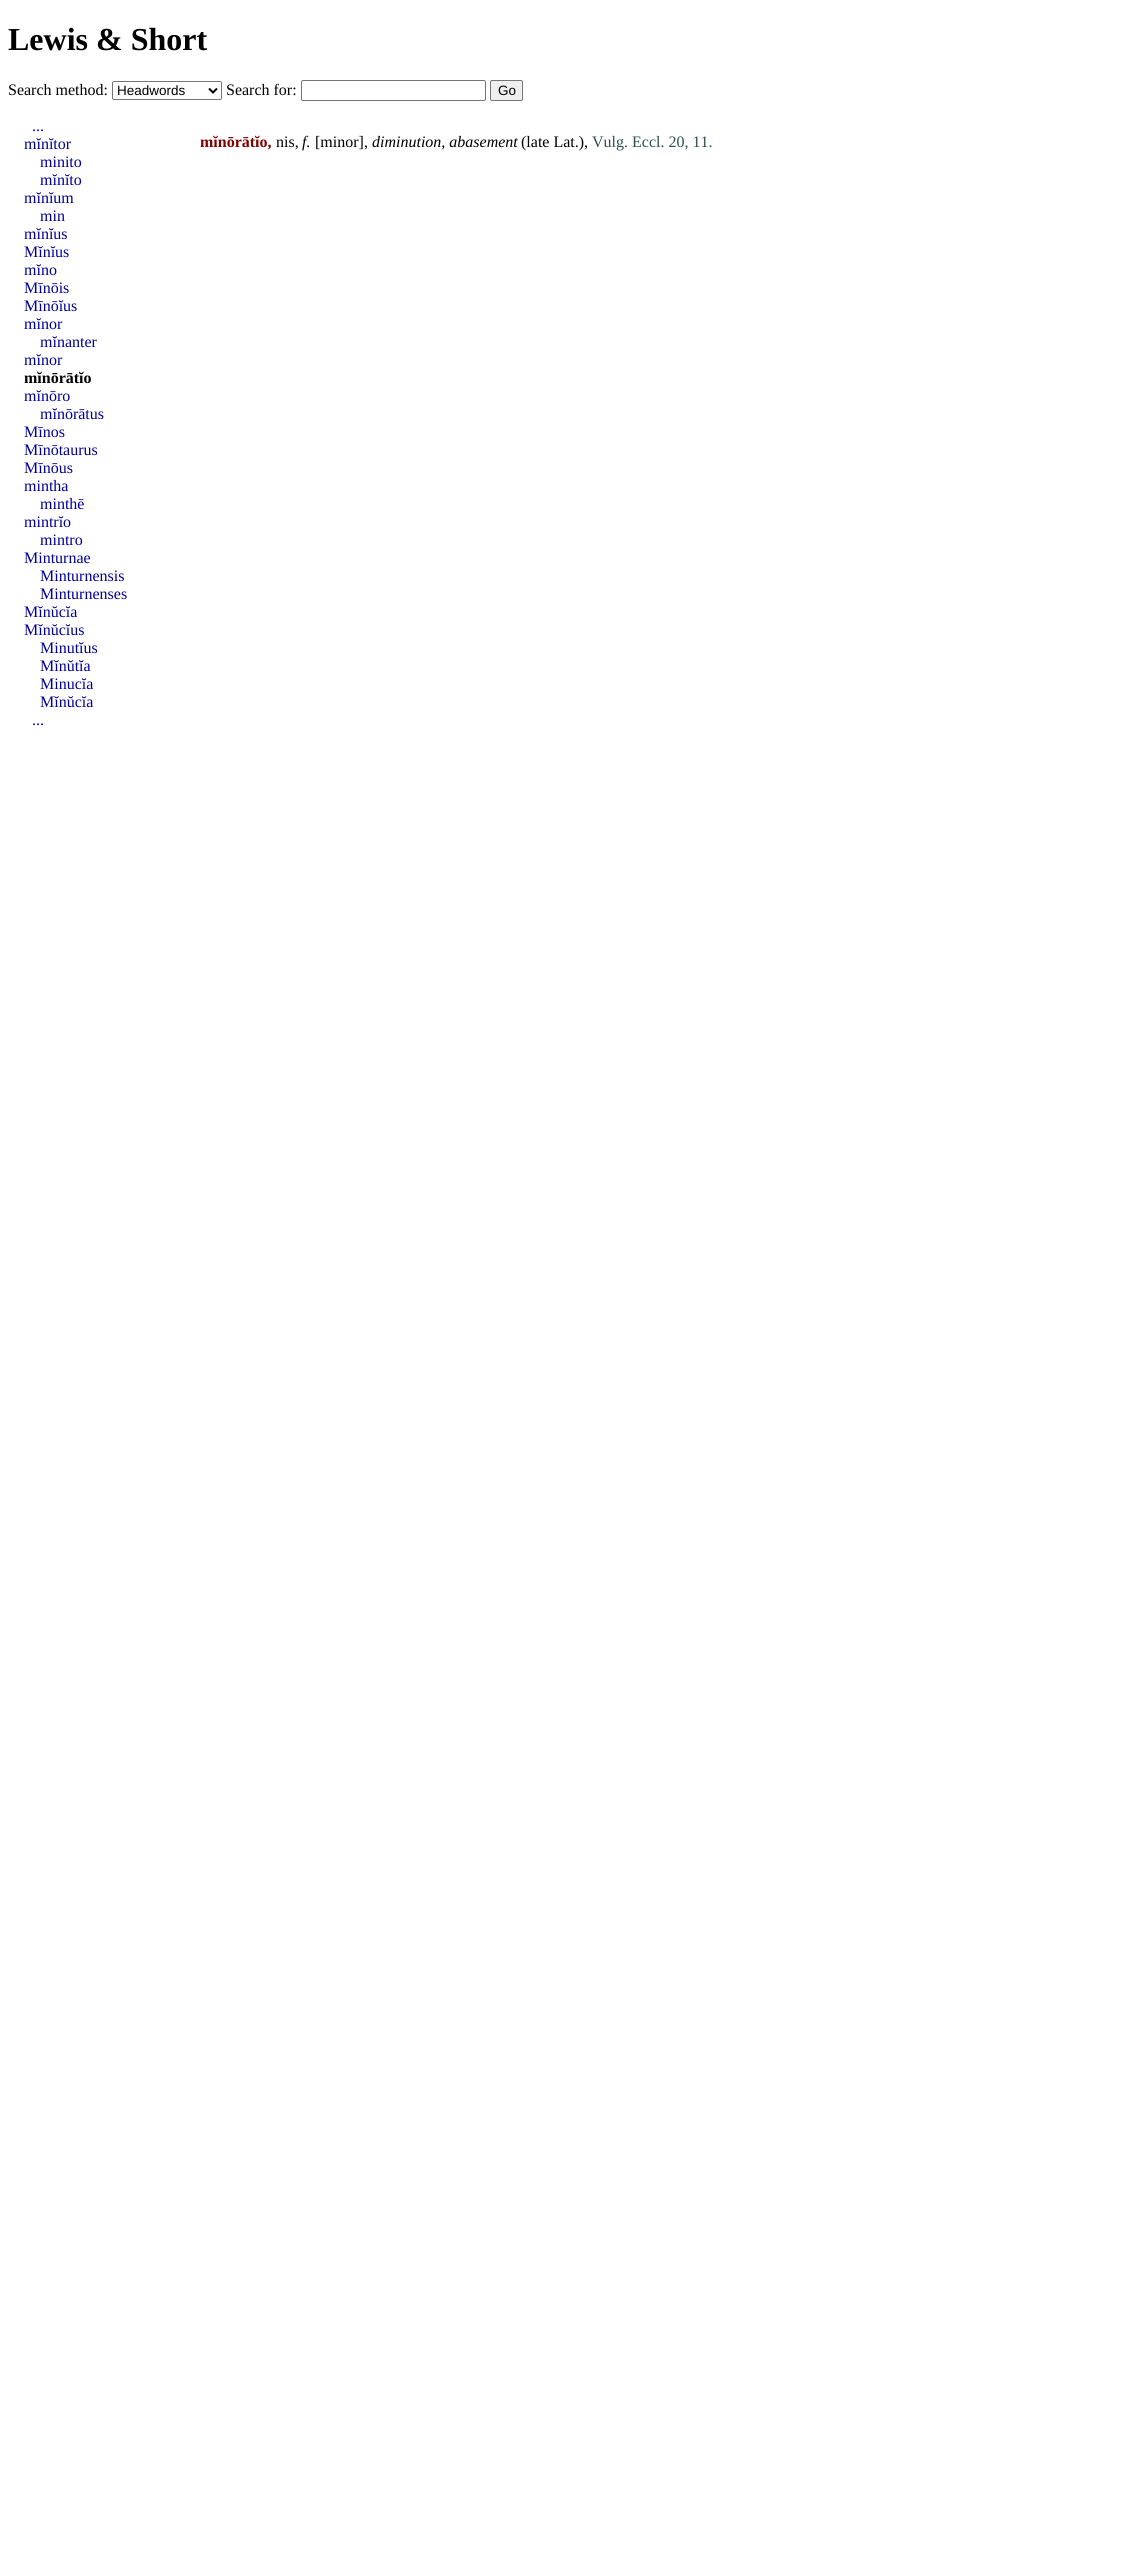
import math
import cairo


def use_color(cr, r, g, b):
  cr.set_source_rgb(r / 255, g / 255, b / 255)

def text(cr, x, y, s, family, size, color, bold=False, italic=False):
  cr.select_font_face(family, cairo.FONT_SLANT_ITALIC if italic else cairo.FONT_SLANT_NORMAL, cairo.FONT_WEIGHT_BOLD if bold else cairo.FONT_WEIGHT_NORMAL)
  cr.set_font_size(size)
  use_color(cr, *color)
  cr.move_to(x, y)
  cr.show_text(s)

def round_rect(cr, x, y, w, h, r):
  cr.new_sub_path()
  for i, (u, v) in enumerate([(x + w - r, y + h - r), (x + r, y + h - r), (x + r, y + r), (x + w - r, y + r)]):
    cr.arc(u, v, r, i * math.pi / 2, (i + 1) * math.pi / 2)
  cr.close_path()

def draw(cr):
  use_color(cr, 255, 255, 255)
  cr.paint()
  round_rect(cr, 112.5, 81.5, 109, 18, 1.5)
  use_color(cr, 118, 118, 118)
  cr.set_line_width(1)
  cr.stroke()
  cr.new_path()
  cr.move_to(209, 88.5)
  cr.line_to(213, 92.5)
  cr.line_to(217, 88.5)
  use_color(cr, 0, 0, 0)
  cr.set_line_width(2)
  cr.stroke()
  round_rect(cr, 301.5, 80.5, 184, 20, 1.5)
  use_color(cr, 118, 118, 118)
  cr.set_line_width(1)
  cr.stroke()
  use_color(cr, 239, 239, 239)
  round_rect(cr, 490.5, 80.5, 32, 20, 1.5)
  cr.fill_preserve()
  use_color(cr, 118, 118, 118)
  cr.stroke()
  text(cr, 8, 50, "Lewis & Short", "Liberation Serif", 32, (0, 0, 0), bold=True)
  text(cr, 8, 95, "Search method:", "Liberation Serif", 16, (0, 0, 0))
  text(cr, 117, 95, "Headwords", "Liberation Sans", 13.5, (0, 0, 0))
  text(cr, 226, 95, "Search for:", "Liberation Serif", 16, (0, 0, 0))
  text(cr, 498, 95, "Go", "Liberation Sans", 13.5, (0, 0, 0))
  text(cr, 32, 131, "...", "Liberation Serif", 16, (0, 0, 152))
  text(cr, 24, 149, "mĭnĭtor", "Liberation Serif", 16, (0, 0, 152))
  text(cr, 40, 167, "minito", "Liberation Serif", 16, (0, 0, 152))
  text(cr, 40, 185, "mĭnĭto", "Liberation Serif", 16, (0, 0, 152))
  text(cr, 24, 203, "mĭnĭum", "Liberation Serif", 16, (0, 0, 152))
  text(cr, 40, 221, "min", "Liberation Serif", 16, (0, 0, 152))
  text(cr, 24, 239, "mĭnĭus", "Liberation Serif", 16, (0, 0, 152))
  text(cr, 24, 257, "Mĭnĭus", "Liberation Serif", 16, (0, 0, 152))
  text(cr, 24, 275, "mĭno", "Liberation Serif", 16, (0, 0, 152))
  text(cr, 24, 293, "Mīnōis", "Liberation Serif", 16, (0, 0, 152))
  text(cr, 24, 311, "Mīnōĭus", "Liberation Serif", 16, (0, 0, 152))
  text(cr, 24, 329, "mĭnor", "Liberation Serif", 16, (0, 0, 152))
  text(cr, 40, 347, "mĭnanter", "Liberation Serif", 16, (0, 0, 152))
  text(cr, 24, 365, "mĭnor", "Liberation Serif", 16, (0, 0, 152))
  text(cr, 24, 383, "mĭnōrātĭo", "Liberation Serif", 16, (0, 0, 0), bold=True)
  text(cr, 24, 401, "mĭnōro", "Liberation Serif", 16, (0, 0, 152))
  text(cr, 40, 419, "mĭnōrātus", "Liberation Serif", 16, (0, 0, 152))
  text(cr, 24, 437, "Mīnos", "Liberation Serif", 16, (0, 0, 152))
  text(cr, 24, 455, "Mīnōtaurus", "Liberation Serif", 16, (0, 0, 152))
  text(cr, 24, 473, "Mīnōus", "Liberation Serif", 16, (0, 0, 152))
  text(cr, 24, 491, "mintha", "Liberation Serif", 16, (0, 0, 152))
  text(cr, 40, 509, "minthē", "Liberation Serif", 16, (0, 0, 152))
  text(cr, 24, 527, "mintrĭo", "Liberation Serif", 16, (0, 0, 152))
  text(cr, 40, 545, "mintro", "Liberation Serif", 16, (0, 0, 152))
  text(cr, 24, 563, "Minturnae", "Liberation Serif", 16, (0, 0, 152))
  text(cr, 40, 581, "Minturnensis", "Liberation Serif", 16, (0, 0, 152))
  text(cr, 40, 599, "Minturnenses", "Liberation Serif", 16, (0, 0, 152))
  text(cr, 24, 617, "Mĭnŭcĭa", "Liberation Serif", 16, (0, 0, 152))
  text(cr, 24, 635, "Mĭnŭcĭus", "Liberation Serif", 16, (0, 0, 152))
  text(cr, 40, 653, "Minutĭus", "Liberation Serif", 16, (0, 0, 152))
  text(cr, 40, 671, "Mĭnŭtĭa", "Liberation Serif", 16, (0, 0, 152))
  text(cr, 40, 689, "Minucĭa", "Liberation Serif", 16, (0, 0, 152))
  text(cr, 40, 707, "Mĭnŭcĭa", "Liberation Serif", 16, (0, 0, 152))
  text(cr, 32, 725, "...", "Liberation Serif", 16, (0, 0, 152))
  text(cr, 200, 147, "mĭnōrātĭo,", "Liberation Serif", 16, (128, 0, 0), bold=True)
  text(cr, 276, 147, "nis,", "Liberation Serif", 16, (0, 0, 0))
  text(cr, 302, 147, "f.", "Liberation Serif", 16, (0, 0, 0), italic=True)
  text(cr, 315, 147, "[minor],", "Liberation Serif", 16, (0, 0, 0))
  text(cr, 372, 147, "diminution, abasement", "Liberation Serif", 16, (0, 0, 0), italic=True)
  text(cr, 521, 147, "(late Lat.),", "Liberation Serif", 16, (0, 0, 0))
  text(cr, 592, 147, "Vulg. Eccl. 20, 11.", "Liberation Serif", 16, (47, 79, 79))


surface = cairo.ImageSurface(cairo.FORMAT_RGB24, 1144, 2566)
cr = cairo.Context(surface)
options = cairo.FontOptions()
options.set_hint_metrics(cairo.HINT_METRICS_OFF)
options.set_hint_style(cairo.HINT_STYLE_NONE)
cr.set_font_options(options)
cr.set_miter_limit(4)
draw(cr)
surface.write_to_png("out.png")
